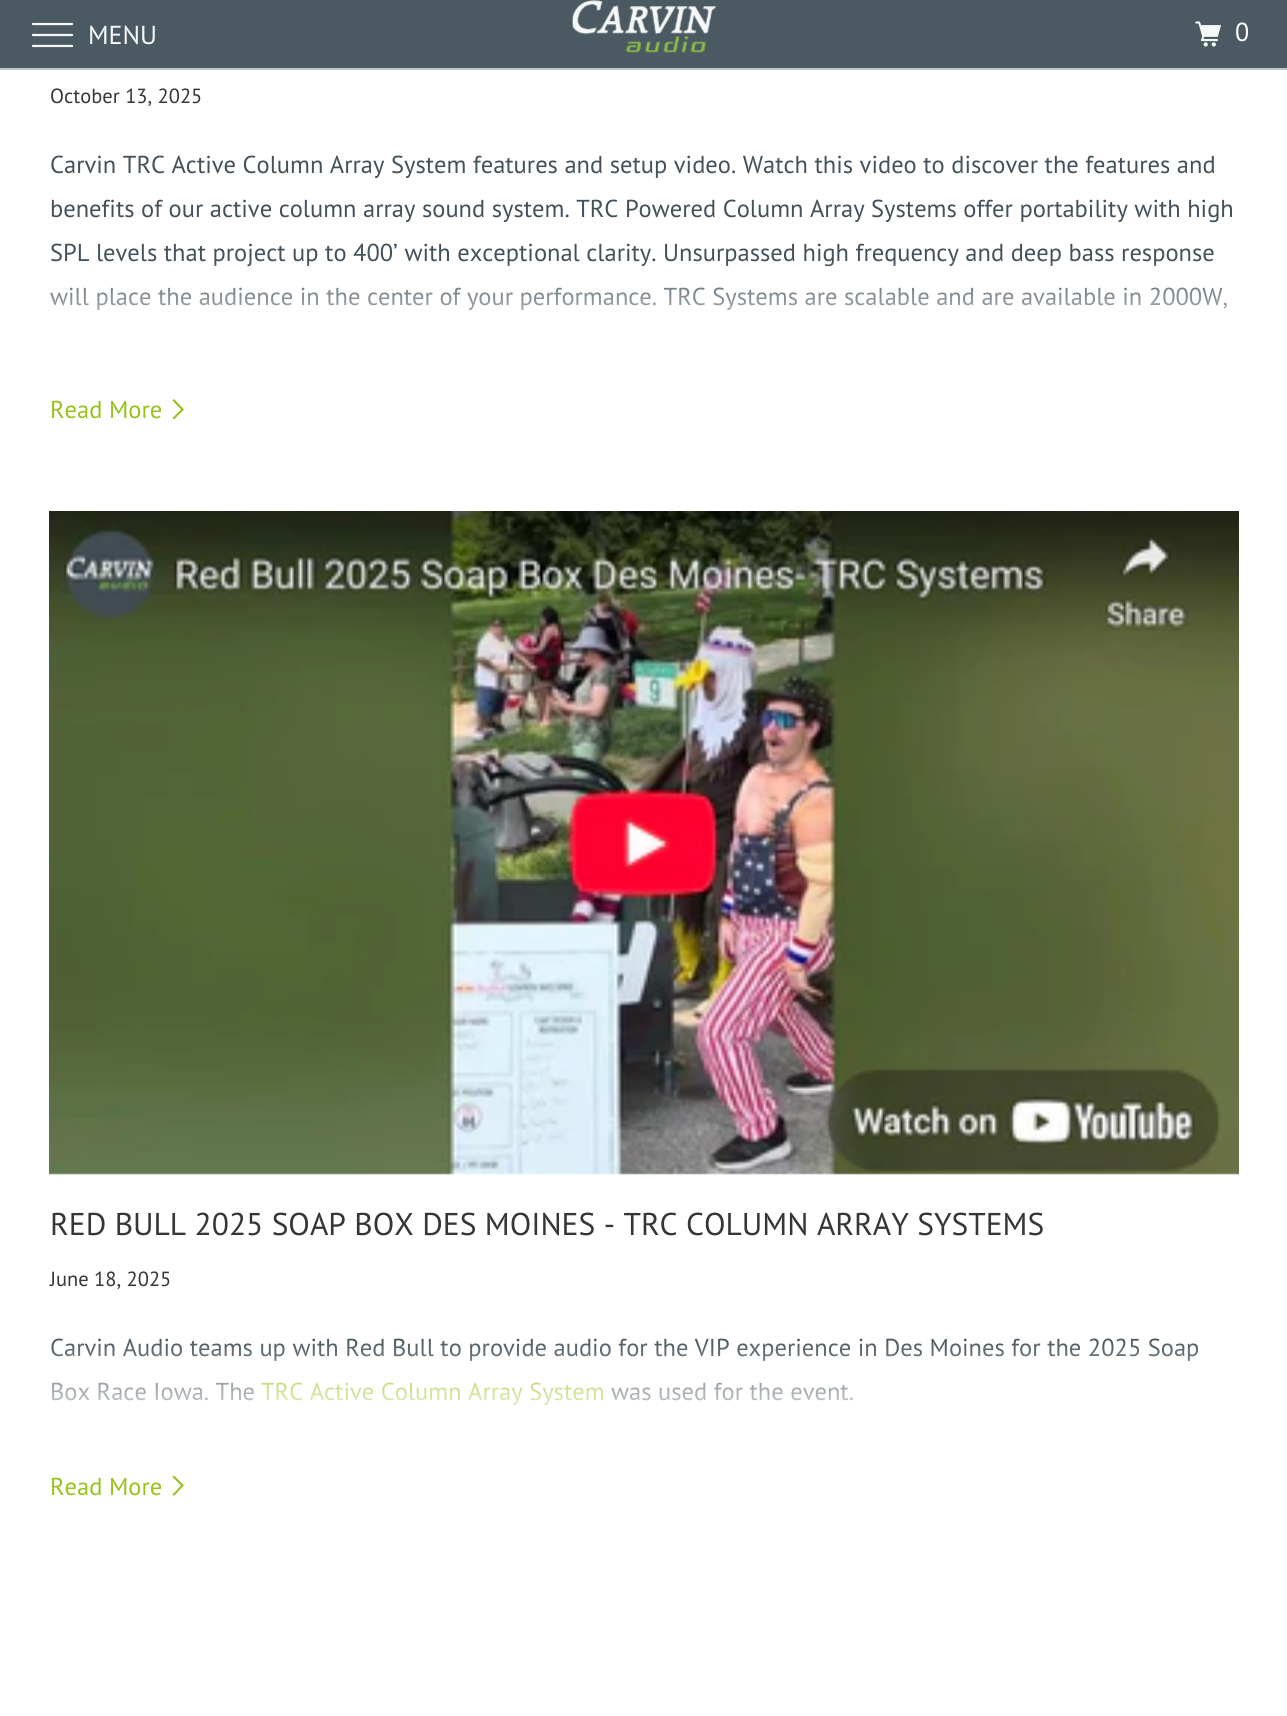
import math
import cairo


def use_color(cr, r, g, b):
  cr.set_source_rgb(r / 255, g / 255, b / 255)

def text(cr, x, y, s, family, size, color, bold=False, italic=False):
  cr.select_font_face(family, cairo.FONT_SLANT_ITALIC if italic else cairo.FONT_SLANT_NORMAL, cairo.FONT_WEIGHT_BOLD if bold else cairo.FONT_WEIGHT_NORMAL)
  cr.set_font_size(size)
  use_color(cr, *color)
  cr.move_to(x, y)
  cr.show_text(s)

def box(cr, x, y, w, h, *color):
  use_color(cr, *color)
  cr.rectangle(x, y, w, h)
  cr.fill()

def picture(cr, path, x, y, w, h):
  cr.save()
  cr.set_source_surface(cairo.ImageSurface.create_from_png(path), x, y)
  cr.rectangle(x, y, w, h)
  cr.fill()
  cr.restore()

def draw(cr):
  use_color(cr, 255, 255, 255)
  cr.paint()
  box(cr, 0, 68, 1287, 2, 188, 201, 201)
  box(cr, 0, 0, 1287, 68, 75, 90, 98)
  picture(cr, "img_01.png", 31, 22, 43, 26)
  picture(cr, "img_02.png", 572, 0, 144, 53)
  picture(cr, "img_03.png", 1195, 21, 26, 26)
  use_color(cr, 151, 194, 26)
  cr.new_path()
  cr.move_to(179, 414.5)
  cr.line_to(174, 419.5)
  cr.line_to(172.5, 418)
  cr.line_to(181, 409.5)
  cr.line_to(172.5, 400.5)
  cr.line_to(174, 399)
  cr.line_to(184, 409.5)
  cr.close_path()
  cr.fill()
  picture(cr, "img_04.png", 49, 511, 1190, 664)
  cr.new_path()
  cr.move_to(179, 1490.5)
  cr.line_to(174, 1496)
  cr.line_to(172.5, 1494.5)
  cr.line_to(181, 1485.5)
  cr.line_to(172.5, 1477)
  cr.line_to(174, 1475.5)
  cr.line_to(184, 1485.5)
  cr.close_path()
  cr.fill()
  text(cr, 88, 44, "MENU", "PT Sans", 26, (246, 247, 247))
  text(cr, 1235, 41, "0", "PT Sans", 26, (255, 255, 255))
  text(cr, 50, 103, "October 13, 2025", "PT Sans", 20.5, (54, 54, 54))
  text(cr, 50, 173, "Carvin TRC Active Column Array System features and setup video. Watch this video to discover the features and", "PT Sans", 24.5, (66, 81, 90))
  text(cr, 50, 217, "benefits of our active column array sound system. TRC Powered Column Array Systems offer portability with high", "PT Sans", 24.5, (66, 81, 90))
  text(cr, 50, 261, "SPL levels that project up to 400’ with exceptional clarity. Unsurpassed high frequency and deep bass response", "PT Sans", 24.5, (66, 81, 90))
  text(cr, 50, 305, "will place the audience in the center of your performance. TRC Systems are scalable and are available in 2000W,", "PT Sans", 24.5, (66, 81, 90))
  gradient = cairo.LinearGradient(644, 259, 644, 364)
  gradient.add_color_stop_rgba(0, 1, 1, 1, 0)
  gradient.add_color_stop_rgba(1, 1, 1, 1, 1)
  cr.set_source(gradient)
  cr.rectangle(50, 261, 1177, 49)
  cr.fill()
  text(cr, 50, 418, "Read More", "PT Sans", 24.5, (151, 194, 26))
  text(cr, 50, 1235, "RED BULL 2025 SOAP BOX DES MOINES - TRC COLUMN ARRAY SYSTEMS", "PT Sans", 31.5, (54, 54, 54))
  text(cr, 50, 1286, "June 18, 2025", "PT Sans", 20.5, (54, 54, 54))
  text(cr, 50, 1356, "Carvin Audio teams up with Red Bull to provide audio for the VIP experience in Des Moines for the 2025 Soap", "PT Sans", 24.5, (66, 81, 90))
  text(cr, 50, 1400, "Box Race Iowa. The", "PT Sans", 24.5, (66, 81, 90))
  text(cr, 261, 1400, "TRC Active Column Array System", "PT Sans", 24.5, (151, 194, 26))
  text(cr, 611, 1400, "was used for the event.", "PT Sans", 24.5, (66, 81, 90))
  gradient = cairo.LinearGradient(644, 1335, 644, 1440)
  gradient.add_color_stop_rgba(0, 1, 1, 1, 0)
  gradient.add_color_stop_rgba(1, 1, 1, 1, 1)
  cr.set_source(gradient)
  cr.rectangle(51, 1339, 1147, 66)
  cr.fill()
  text(cr, 50, 1495, "Read More", "PT Sans", 24.5, (151, 194, 26))


surface = cairo.ImageSurface(cairo.FORMAT_RGB24, 1287, 1716)
cr = cairo.Context(surface)
options = cairo.FontOptions()
options.set_hint_metrics(cairo.HINT_METRICS_OFF)
options.set_hint_style(cairo.HINT_STYLE_NONE)
cr.set_font_options(options)
cr.set_miter_limit(4)
draw(cr)
surface.write_to_png("out.png")
